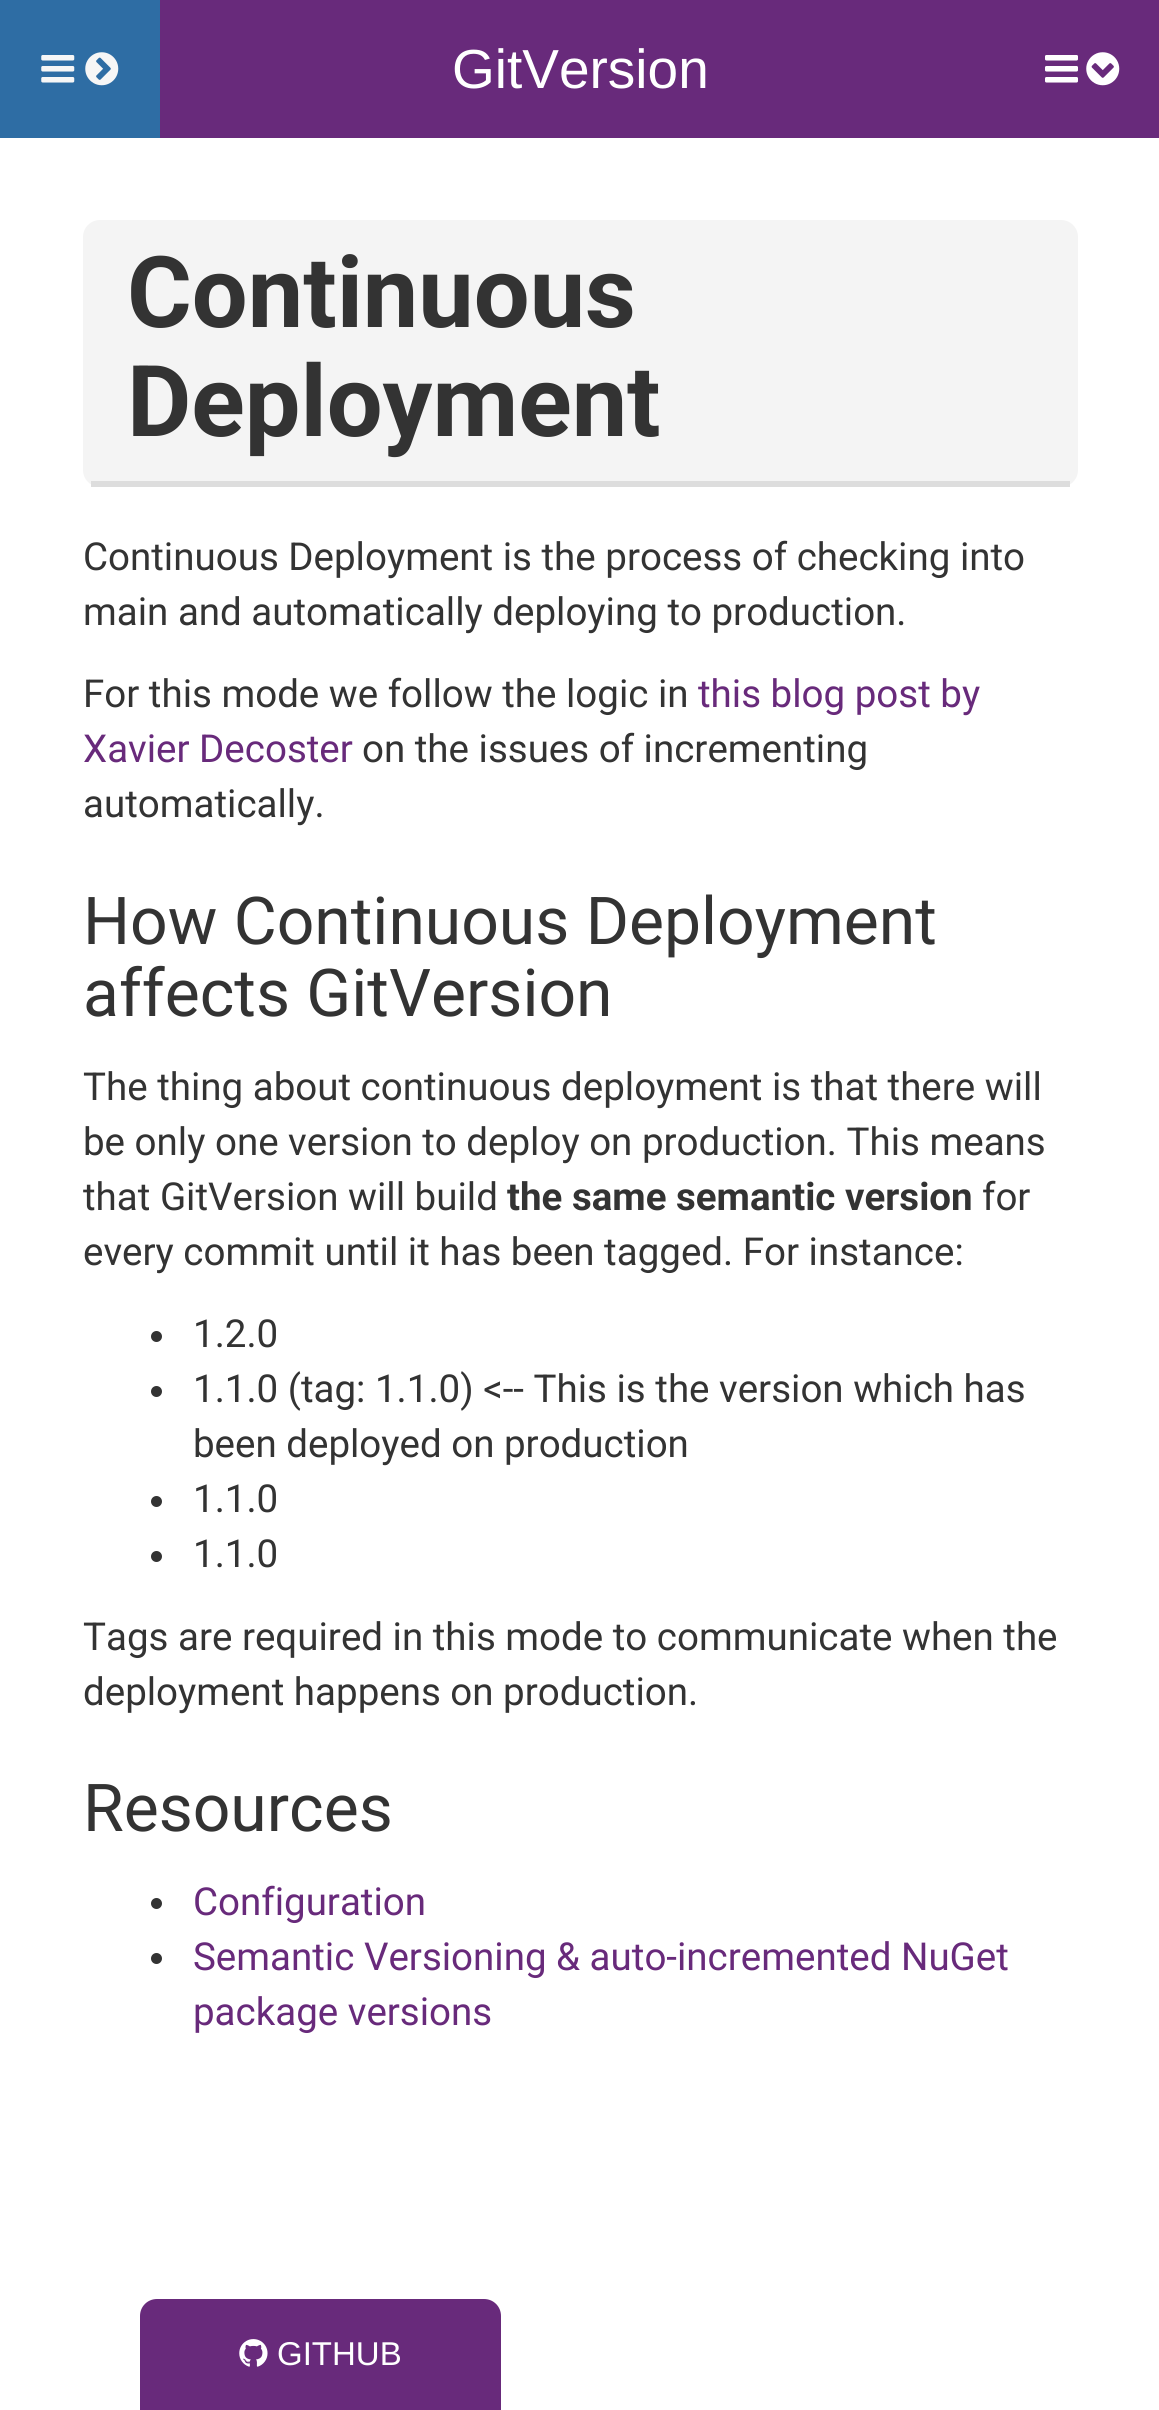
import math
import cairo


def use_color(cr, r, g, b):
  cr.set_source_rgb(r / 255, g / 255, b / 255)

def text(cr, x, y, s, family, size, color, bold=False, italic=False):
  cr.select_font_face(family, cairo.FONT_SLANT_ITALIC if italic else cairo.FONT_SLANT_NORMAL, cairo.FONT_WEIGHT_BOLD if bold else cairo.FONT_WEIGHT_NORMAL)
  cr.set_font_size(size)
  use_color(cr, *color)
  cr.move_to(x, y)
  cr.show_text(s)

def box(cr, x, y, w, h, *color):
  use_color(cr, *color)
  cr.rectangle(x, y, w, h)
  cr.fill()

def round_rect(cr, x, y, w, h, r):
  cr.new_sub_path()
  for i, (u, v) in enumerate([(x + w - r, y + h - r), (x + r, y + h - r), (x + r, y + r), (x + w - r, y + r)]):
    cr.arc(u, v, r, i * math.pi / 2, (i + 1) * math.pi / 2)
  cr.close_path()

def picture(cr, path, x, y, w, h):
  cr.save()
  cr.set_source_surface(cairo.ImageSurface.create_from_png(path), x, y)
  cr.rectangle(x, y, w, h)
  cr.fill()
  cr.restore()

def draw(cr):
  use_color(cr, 255, 255, 255)
  cr.paint()
  box(cr, 160, 0, 999, 138, 104, 42, 123)
  box(cr, 0, 0, 160, 138, 46, 109, 164)
  picture(cr, "img_01.png", 41, 55, 34, 28)
  picture(cr, "img_02.png", 85, 52, 34, 34)
  picture(cr, "img_03.png", 1045, 55, 33, 28)
  picture(cr, "img_04.png", 1086, 52, 34, 34)
  use_color(cr, 244, 244, 244)
  round_rect(cr, 83, 220, 995, 267, 17)
  cr.fill()
  box(cr, 91, 481, 979, 6, 221, 221, 221)
  use_color(cr, 51, 51, 51)
  cr.arc(156.5, 1336.5, 5.5, 0, 2 * math.pi)
  cr.fill()
  cr.arc(156.5, 1391.5, 5.5, 0, 2 * math.pi)
  cr.fill()
  cr.arc(156.5, 1501.5, 5.5, 0, 2 * math.pi)
  cr.fill()
  cr.arc(156.5, 1556.5, 5.5, 0, 2 * math.pi)
  cr.fill()
  cr.arc(156.5, 1903.5, 5.5, 0, 2 * math.pi)
  cr.fill()
  cr.arc(156.5, 1958.5, 5.5, 0, 2 * math.pi)
  cr.fill()
  use_color(cr, 104, 42, 123)
  cr.new_path()
  cr.move_to(157, 2299)
  cr.line_to(484, 2299)
  cr.curve_to(493.5, 2299, 501, 2306.5, 501, 2316)
  cr.line_to(501, 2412)
  cr.line_to(140, 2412)
  cr.line_to(140, 2316)
  cr.curve_to(140, 2306.5, 147.5, 2299, 157, 2299)
  cr.close_path()
  cr.fill()
  picture(cr, "img_05.png", 239, 2339, 29, 28)
  text(cr, 452, 88, "GitVersion", "Liberation Sans", 55, (255, 255, 255))
  text(cr, 127, 327, "Continuous", "Roboto", 99, (51, 51, 51), bold=True)
  text(cr, 127, 436, "Deployment", "Roboto", 99, (51, 51, 51), bold=True)
  text(cr, 83, 570, "Continuous Deployment is the process of checking into", "Roboto", 38.5, (51, 51, 51))
  text(cr, 83, 625, "main and automatically deploying to production.", "Roboto", 38.5, (51, 51, 51))
  text(cr, 83, 707, "For this mode we follow the logic in", "Roboto", 38.5, (51, 51, 51))
  text(cr, 698, 707, "this blog post by", "Roboto", 38.5, (104, 42, 123))
  text(cr, 83, 762, "Xavier Decoster", "Roboto", 38.5, (104, 42, 123))
  text(cr, 362, 762, "on the issues of incrementing", "Roboto", 38.5, (51, 51, 51))
  text(cr, 83, 817, "automatically.", "Roboto", 38.5, (51, 51, 51))
  text(cr, 83, 944, "How Continuous Deployment", "Roboto", 66, (51, 51, 51))
  text(cr, 83, 1016, "affects GitVersion", "Roboto", 66, (51, 51, 51))
  text(cr, 83, 1100, "The thing about continuous deployment is that there will", "Roboto", 38.5, (51, 51, 51))
  text(cr, 83, 1155, "be only one version to deploy on production. This means", "Roboto", 38.5, (51, 51, 51))
  text(cr, 83, 1210, "that GitVersion will build", "Roboto", 38.5, (51, 51, 51))
  text(cr, 507, 1210, "the same semantic version", "Roboto", 38.5, (51, 51, 51), bold=True)
  text(cr, 982, 1210, "for", "Roboto", 38.5, (51, 51, 51))
  text(cr, 83, 1265, "every commit until it has been tagged. For instance:", "Roboto", 38.5, (51, 51, 51))
  text(cr, 193, 1347, "1.2.0", "Roboto", 38.5, (51, 51, 51))
  text(cr, 193, 1402, "1.1.0 (tag: 1.1.0) <-- This is the version which has", "Roboto", 38.5, (51, 51, 51))
  text(cr, 193, 1457, "been deployed on production", "Roboto", 38.5, (51, 51, 51))
  text(cr, 193, 1512, "1.1.0", "Roboto", 38.5, (51, 51, 51))
  text(cr, 193, 1567, "1.1.0", "Roboto", 38.5, (51, 51, 51))
  text(cr, 83, 1650, "Tags are required in this mode to communicate when the", "Roboto", 38.5, (51, 51, 51))
  text(cr, 83, 1705, "deployment happens on production.", "Roboto", 38.5, (51, 51, 51))
  text(cr, 83, 1831, "Resources", "Roboto", 66, (51, 51, 51))
  text(cr, 193, 1915, "Configuration", "Roboto", 38.5, (104, 42, 123))
  text(cr, 193, 1970, "Semantic Versioning & auto-incremented NuGet", "Roboto", 38.5, (104, 42, 123))
  text(cr, 193, 2025, "package versions", "Roboto", 38.5, (104, 42, 123))
  text(cr, 277, 2365, "GITHUB", "Liberation Sans", 33, (255, 255, 255))


surface = cairo.ImageSurface(cairo.FORMAT_RGB24, 1159, 2410)
cr = cairo.Context(surface)
options = cairo.FontOptions()
options.set_hint_metrics(cairo.HINT_METRICS_OFF)
options.set_hint_style(cairo.HINT_STYLE_NONE)
cr.set_font_options(options)
cr.set_miter_limit(4)
draw(cr)
surface.write_to_png("out.png")
